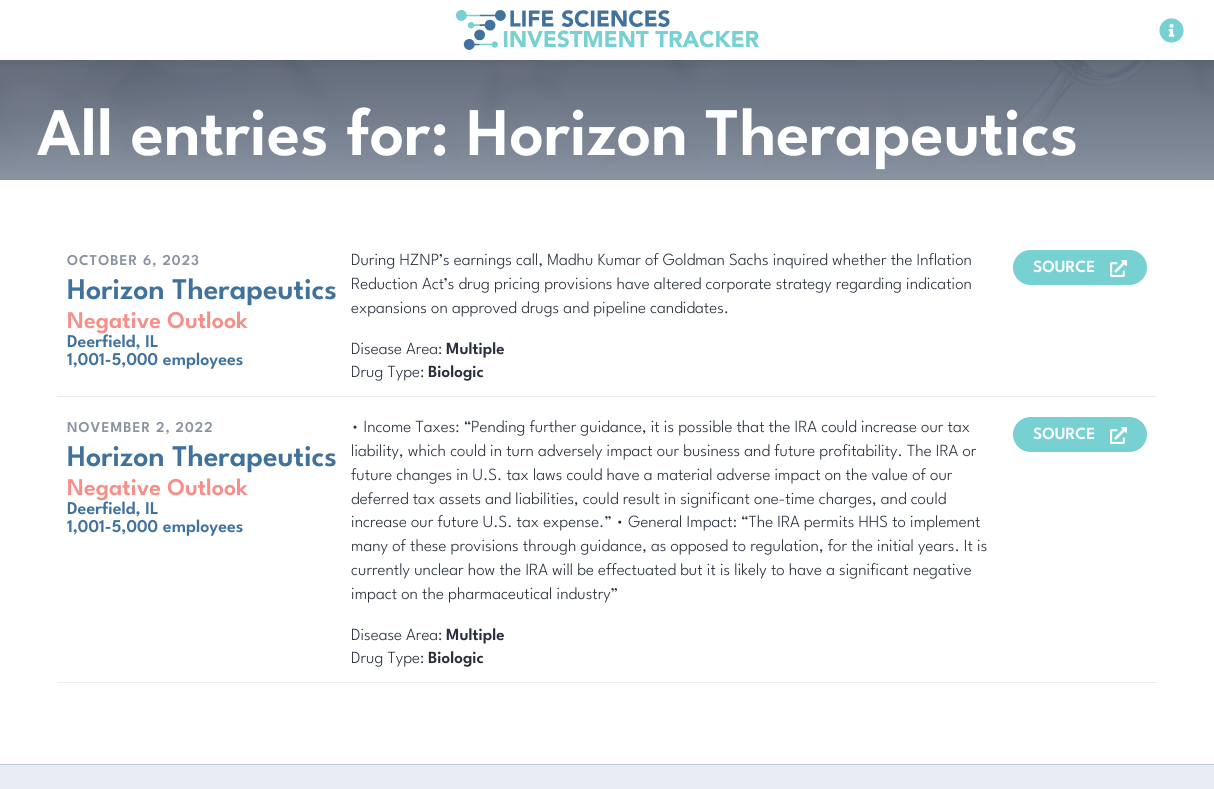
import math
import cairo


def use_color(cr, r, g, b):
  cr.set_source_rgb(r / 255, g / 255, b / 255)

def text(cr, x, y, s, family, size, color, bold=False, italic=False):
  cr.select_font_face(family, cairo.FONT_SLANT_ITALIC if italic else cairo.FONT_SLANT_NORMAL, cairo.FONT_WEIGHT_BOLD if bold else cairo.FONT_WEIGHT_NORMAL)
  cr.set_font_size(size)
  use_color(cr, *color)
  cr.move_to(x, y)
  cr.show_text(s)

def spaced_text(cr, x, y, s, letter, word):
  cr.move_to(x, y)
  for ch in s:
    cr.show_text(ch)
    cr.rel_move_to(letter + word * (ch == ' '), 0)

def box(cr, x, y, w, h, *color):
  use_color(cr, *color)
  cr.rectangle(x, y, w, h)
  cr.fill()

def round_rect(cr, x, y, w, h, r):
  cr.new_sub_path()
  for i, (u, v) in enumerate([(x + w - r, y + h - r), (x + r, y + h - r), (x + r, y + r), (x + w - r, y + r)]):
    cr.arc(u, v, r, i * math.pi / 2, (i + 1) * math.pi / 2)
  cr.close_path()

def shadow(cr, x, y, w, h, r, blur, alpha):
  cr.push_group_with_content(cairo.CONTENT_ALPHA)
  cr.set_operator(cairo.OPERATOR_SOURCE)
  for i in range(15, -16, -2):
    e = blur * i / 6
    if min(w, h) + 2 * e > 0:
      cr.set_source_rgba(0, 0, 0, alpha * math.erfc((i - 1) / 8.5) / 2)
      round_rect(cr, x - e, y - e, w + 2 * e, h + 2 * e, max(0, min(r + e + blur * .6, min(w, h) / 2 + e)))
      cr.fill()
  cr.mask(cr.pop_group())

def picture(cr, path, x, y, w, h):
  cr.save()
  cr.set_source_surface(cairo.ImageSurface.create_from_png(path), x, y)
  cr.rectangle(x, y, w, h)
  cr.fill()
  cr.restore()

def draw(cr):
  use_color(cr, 255, 255, 255)
  cr.paint()
  picture(cr, "img_03.png", 0, 60, 1214, 108)
  gradient = cairo.LinearGradient(607, -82, 607, 180)
  gradient.add_color_stop_rgba(0, 0.157, 0.188, 0.239, 0.87)
  gradient.add_color_stop_rgba(1, 0.537, 0.573, 0.631, 1)
  cr.set_source(gradient)
  cr.rectangle(0, 60, 1214, 120)
  cr.fill()
  use_color(cr, 40, 48, 61)
  shadow(cr, 0, 0, 1214, 60, 0, 6, 0.15)
  box(cr, 0, 0, 1214, 60, 255, 255, 255)
  picture(cr, "img_01.png", 456, 10, 303, 40)
  picture(cr, "img_02.png", 1159, 18, 25, 25)
  box(cr, 57, 396, 1100, 1, 231, 237, 243)
  use_color(cr, 119, 209, 211)
  round_rect(cr, 1013, 250, 134, 35, 17.5)
  cr.fill()
  picture(cr, "img_04.png", 1110, 260, 17, 17)
  box(cr, 57, 682, 1100, 1, 231, 237, 243)
  use_color(cr, 119, 209, 211)
  round_rect(cr, 1013, 417, 134, 35, 17.5)
  cr.fill()
  picture(cr, "img_04.png", 1110, 427, 17, 17)
  box(cr, 0, 765, 1214, 24, 231, 237, 243)
  box(cr, 0, 764, 1214, 1, 189, 201, 221)
  text(cr, 37, 155, "All entries for: Horizon Therapeutics", "League Spartan SemiBold", 68, (255, 255, 255))
  cr.set_font_size(15)
  use_color(cr, 137, 146, 161)
  spaced_text(cr, 67, 265, "OCTOBER 6, 2023", 1, 0)
  text(cr, 67, 299, "Horizon Therapeutics", "League Spartan SemiBold", 30, (65, 114, 157))
  text(cr, 67, 328, "Negative Outlook", "League Spartan SemiBold", 24, (246, 142, 137))
  text(cr, 67, 347, "Deerfield, IL", "League Spartan SemiBold", 18, (65, 114, 157))
  text(cr, 67, 365, "1,001-5,000 employees", "League Spartan SemiBold", 18, (65, 114, 157))
  text(cr, 351, 265, "During HZNP’s earnings call, Madhu Kumar of Goldman Sachs inquired whether the Inflation", "League Spartan Light", 17, (40, 48, 61))
  text(cr, 351, 289, "Reduction Act’s drug pricing provisions have altered corporate strategy regarding indication", "League Spartan Light", 17, (40, 48, 61))
  text(cr, 351, 313, "expansions on approved drugs and pipeline candidates.", "League Spartan Light", 17, (40, 48, 61))
  text(cr, 351, 354, "Disease Area:", "League Spartan Light", 17, (40, 48, 61))
  text(cr, 446, 354, "Multiple", "League Spartan SemiBold", 17, (40, 48, 61))
  text(cr, 351, 377, "Drug Type:", "League Spartan Light", 17, (40, 48, 61))
  text(cr, 428, 377, "Biologic", "League Spartan SemiBold", 17, (40, 48, 61))
  text(cr, 1033, 272, "SOURCE", "League Spartan SemiBold", 17, (255, 255, 255))
  cr.set_font_size(15)
  use_color(cr, 137, 146, 161)
  spaced_text(cr, 67, 432, "NOVEMBER 2, 2022", 1, 0)
  text(cr, 67, 466, "Horizon Therapeutics", "League Spartan SemiBold", 30, (65, 114, 157))
  text(cr, 67, 495, "Negative Outlook", "League Spartan SemiBold", 24, (246, 142, 137))
  text(cr, 67, 514, "Deerfield, IL", "League Spartan SemiBold", 18, (65, 114, 157))
  text(cr, 67, 532, "1,001-5,000 employees", "League Spartan SemiBold", 18, (65, 114, 157))
  text(cr, 351, 432, "• Income Taxes: “Pending further guidance, it is possible that the IRA could increase our tax", "League Spartan Light", 17, (40, 48, 61))
  text(cr, 351, 456, "liability, which could in turn adversely impact our business and future profitability. The IRA or", "League Spartan Light", 17, (40, 48, 61))
  text(cr, 351, 480, "future changes in U.S. tax laws could have a material adverse impact on the value of our", "League Spartan Light", 17, (40, 48, 61))
  text(cr, 351, 504, "deferred tax assets and liabilities, could result in significant one-time charges, and could", "League Spartan Light", 17, (40, 48, 61))
  text(cr, 351, 527, "increase our future U.S. tax expense.” • General Impact: “The IRA permits HHS to implement", "League Spartan Light", 17, (40, 48, 61))
  text(cr, 351, 551, "many of these provisions through guidance, as opposed to regulation, for the initial years. It is", "League Spartan Light", 17, (40, 48, 61))
  text(cr, 351, 575, "currently unclear how the IRA will be effectuated but it is likely to have a significant negative", "League Spartan Light", 17, (40, 48, 61))
  text(cr, 351, 599, "impact on the pharmaceutical industry”", "League Spartan Light", 17, (40, 48, 61))
  text(cr, 351, 640, "Disease Area:", "League Spartan Light", 17, (40, 48, 61))
  text(cr, 446, 640, "Multiple", "League Spartan SemiBold", 17, (40, 48, 61))
  text(cr, 351, 663, "Drug Type:", "League Spartan Light", 17, (40, 48, 61))
  text(cr, 428, 663, "Biologic", "League Spartan SemiBold", 17, (40, 48, 61))
  text(cr, 1033, 439, "SOURCE", "League Spartan SemiBold", 17, (255, 255, 255))


surface = cairo.ImageSurface(cairo.FORMAT_RGB24, 1214, 789)
cr = cairo.Context(surface)
options = cairo.FontOptions()
options.set_hint_metrics(cairo.HINT_METRICS_OFF)
options.set_hint_style(cairo.HINT_STYLE_NONE)
cr.set_font_options(options)
cr.set_miter_limit(4)
draw(cr)
surface.write_to_png("out.png")
